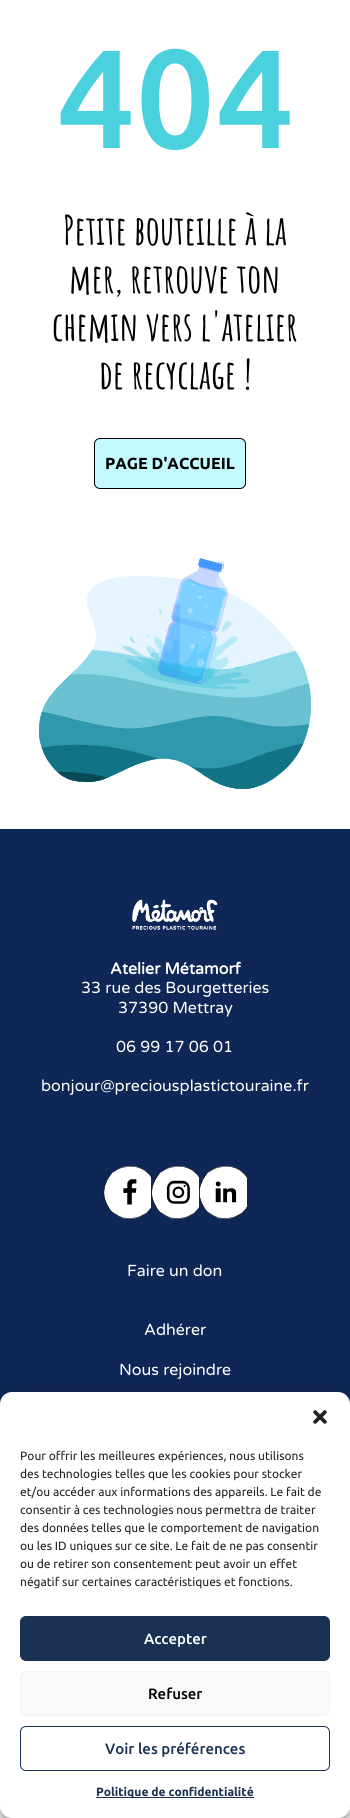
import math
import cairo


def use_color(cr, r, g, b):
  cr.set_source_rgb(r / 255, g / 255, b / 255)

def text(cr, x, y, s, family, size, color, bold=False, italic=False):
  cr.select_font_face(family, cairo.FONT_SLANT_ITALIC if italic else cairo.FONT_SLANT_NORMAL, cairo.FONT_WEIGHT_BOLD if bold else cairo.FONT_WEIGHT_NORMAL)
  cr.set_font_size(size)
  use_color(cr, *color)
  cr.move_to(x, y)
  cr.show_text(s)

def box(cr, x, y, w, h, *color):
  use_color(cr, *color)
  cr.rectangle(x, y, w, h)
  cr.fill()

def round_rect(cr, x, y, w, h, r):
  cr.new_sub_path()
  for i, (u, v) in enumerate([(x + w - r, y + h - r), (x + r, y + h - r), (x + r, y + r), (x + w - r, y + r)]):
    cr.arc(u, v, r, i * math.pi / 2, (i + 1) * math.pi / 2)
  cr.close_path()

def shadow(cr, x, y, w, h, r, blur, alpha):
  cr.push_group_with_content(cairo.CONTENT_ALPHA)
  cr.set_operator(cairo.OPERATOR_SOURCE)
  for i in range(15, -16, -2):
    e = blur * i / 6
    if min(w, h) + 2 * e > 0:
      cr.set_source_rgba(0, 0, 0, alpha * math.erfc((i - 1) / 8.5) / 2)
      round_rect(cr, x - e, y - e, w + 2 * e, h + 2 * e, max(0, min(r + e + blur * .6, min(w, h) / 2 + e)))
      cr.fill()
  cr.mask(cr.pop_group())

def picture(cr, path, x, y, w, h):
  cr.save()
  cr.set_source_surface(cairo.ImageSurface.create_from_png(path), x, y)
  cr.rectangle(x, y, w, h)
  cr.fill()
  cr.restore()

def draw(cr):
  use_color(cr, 255, 255, 255)
  cr.paint()
  use_color(cr, 195, 250, 255)
  round_rect(cr, 94.5, 438.5, 151, 50, 5.5)
  cr.fill_preserve()
  use_color(cr, 0, 0, 0)
  cr.set_line_width(1)
  cr.stroke()
  picture(cr, "img_01.png", 39, 558, 272, 231)
  box(cr, 0, 829, 350, 575, 15, 39, 86)
  picture(cr, "img_02.png", 132, 899, 86, 31)
  picture(cr, "img_03.png", 103, 1166, 48, 53)
  picture(cr, "img_04.png", 151, 1166, 48, 53)
  picture(cr, "img_05.png", 199, 1166, 48, 53)
  use_color(cr, 0, 0, 0)
  shadow(cr, 0, 1398, 350, 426, 12, 3, 0.23)
  shadow(cr, 0, 1402, 350, 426, 12, 10, 0.19)
  use_color(cr, 128, 128, 128)
  shadow(cr, 280, 1744, 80, 60, 2, 2.5, 1)
  use_color(cr, 255, 255, 255)
  round_rect(cr, 0, 1392, 350, 426, 12)
  cr.fill()
  picture(cr, "img_06.png", 313, 1410, 14, 14)
  use_color(cr, 25, 49, 83)
  round_rect(cr, 20.5, 1616.5, 309, 44, 5.5)
  cr.fill_preserve()
  cr.stroke()
  use_color(cr, 249, 249, 249)
  round_rect(cr, 20.5, 1671.5, 309, 44, 5.5)
  cr.fill_preserve()
  use_color(cr, 242, 242, 242)
  cr.stroke()
  round_rect(cr, 20.5, 1726.5, 309, 44, 5.5)
  use_color(cr, 25, 49, 83)
  cr.stroke()
  box(cr, 96, 1797, 158, 1, 25, 49, 83)
  text(cr, 56, 148, "404", "Ubuntu Medium", 140, (75, 209, 221))
  text(cr, 63, 245, "Petite bouteille à la", "Amatic SC", 40, (0, 0, 0), bold=True)
  text(cr, 69, 293, "mer, retrouve ton", "Amatic SC", 40, (0, 0, 0), bold=True)
  text(cr, 52, 341, "chemin vers l'atelier", "Amatic SC", 40, (0, 0, 0), bold=True)
  text(cr, 99, 389, "de recyclage !", "Amatic SC", 40, (0, 0, 0), bold=True)
  text(cr, 105, 469, "PAGE D'ACCUEIL", "Ubuntu", 16, (0, 0, 0), bold=True)
  text(cr, 110, 974, "Atelier Métamorf", "Varela Round", 16, (255, 255, 255), bold=True)
  text(cr, 81, 993, "33 rue des Bourgetteries", "Varela Round", 16, (255, 255, 255))
  text(cr, 118, 1013, "37390 Mettray", "Varela Round", 16, (255, 255, 255))
  text(cr, 116, 1052, "06 99 17 06 01", "Varela Round", 16, (255, 255, 255))
  text(cr, 41, 1091, "bonjour@preciousplastictouraine.fr", "Varela Round", 16, (255, 255, 255))
  text(cr, 127, 1276, "Faire un don", "Varela Round", 16, (255, 255, 255))
  text(cr, 144, 1335, "Adhérer", "Varela Round", 16, (255, 255, 255))
  text(cr, 119, 1375, "Nous rejoindre", "Varela Round", 16, (255, 255, 255))
  text(cr, 20, 1460, "Pour offrir les meilleures expériences, nous utilisons", "Ubuntu", 12, (34, 34, 34))
  text(cr, 20, 1478, "des technologies telles que les cookies pour stocker", "Ubuntu", 12, (34, 34, 34))
  text(cr, 20, 1496, "et/ou accéder aux informations des appareils. Le fait de", "Ubuntu", 12, (34, 34, 34))
  text(cr, 20, 1514, "consentir à ces technologies nous permettra de traiter", "Ubuntu", 12, (34, 34, 34))
  text(cr, 20, 1532, "des données telles que le comportement de navigation", "Ubuntu", 12, (34, 34, 34))
  text(cr, 20, 1550, "ou les ID uniques sur ce site. Le fait de ne pas consentir", "Ubuntu", 12, (34, 34, 34))
  text(cr, 20, 1568, "ou de retirer son consentement peut avoir un effet", "Ubuntu", 12, (34, 34, 34))
  text(cr, 20, 1586, "négatif sur certaines caractéristiques et fonctions.", "Ubuntu", 12, (34, 34, 34))
  text(cr, 144, 1644, "Accepter", "Ubuntu Medium", 15, (255, 255, 255))
  text(cr, 148, 1699, "Refuser", "Ubuntu Medium", 15, (0, 0, 0))
  text(cr, 105, 1754, "Voir les préférences", "Ubuntu Medium", 15, (25, 49, 83))
  text(cr, 96, 1796, "Politique de confidentialité", "Ubuntu", 12, (25, 49, 83), bold=True)


surface = cairo.ImageSurface(cairo.FORMAT_RGB24, 350, 1818)
cr = cairo.Context(surface)
options = cairo.FontOptions()
options.set_hint_metrics(cairo.HINT_METRICS_OFF)
options.set_hint_style(cairo.HINT_STYLE_NONE)
cr.set_font_options(options)
cr.set_miter_limit(4)
draw(cr)
surface.write_to_png("out.png")
